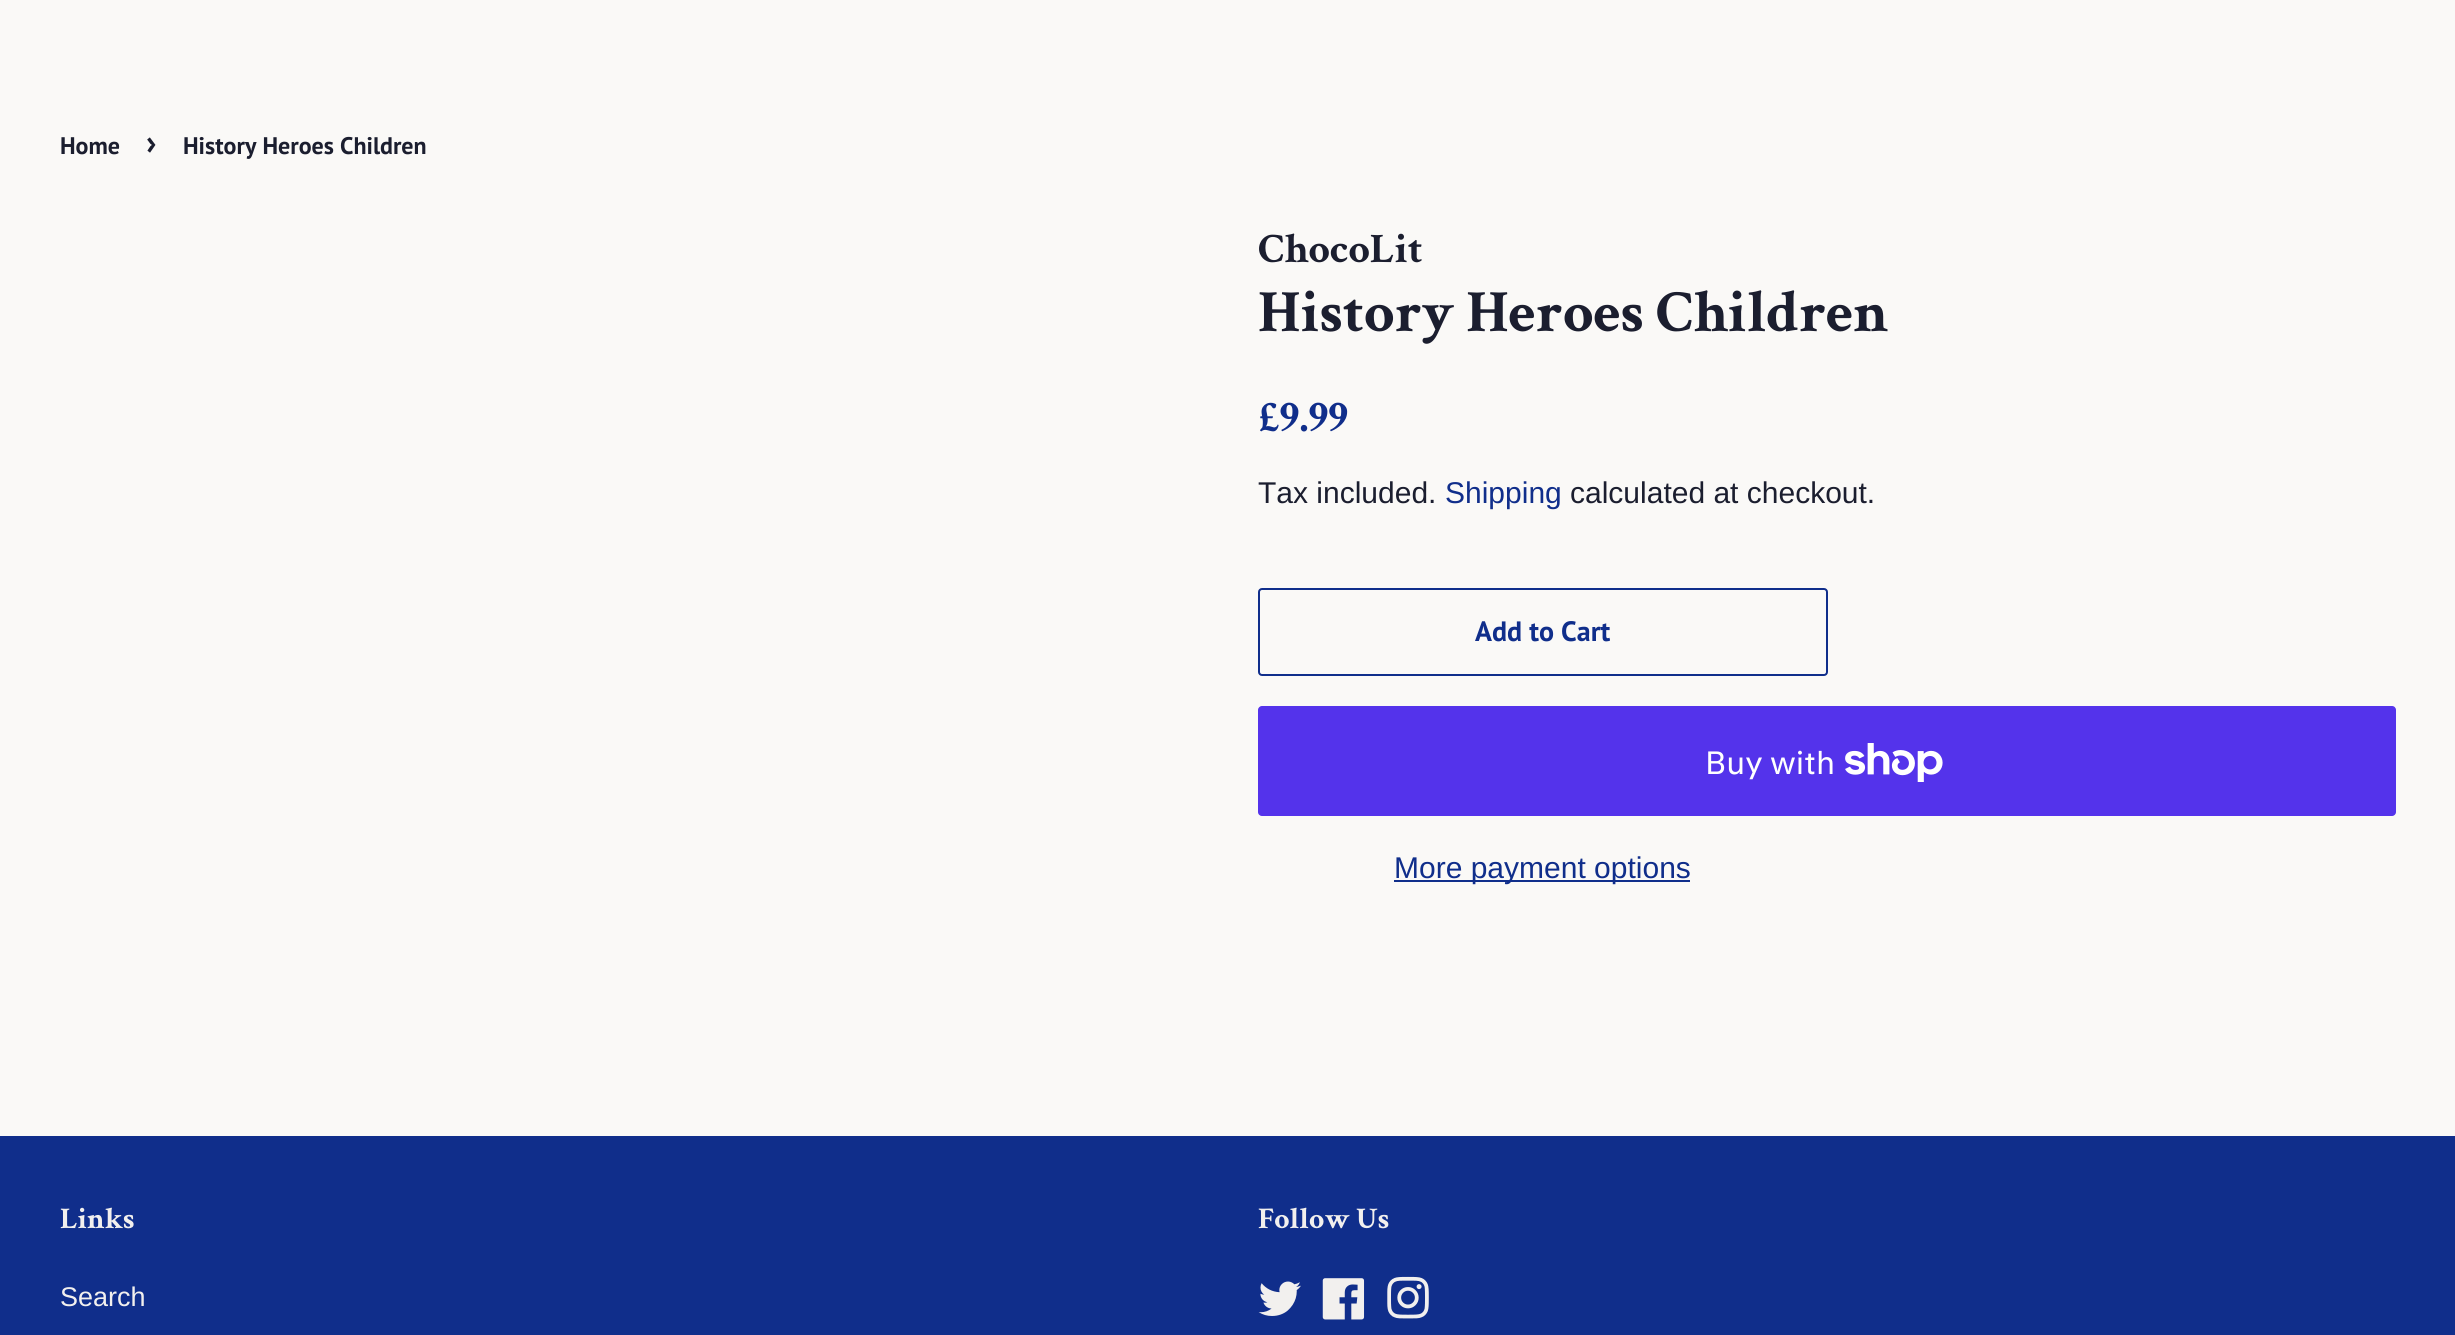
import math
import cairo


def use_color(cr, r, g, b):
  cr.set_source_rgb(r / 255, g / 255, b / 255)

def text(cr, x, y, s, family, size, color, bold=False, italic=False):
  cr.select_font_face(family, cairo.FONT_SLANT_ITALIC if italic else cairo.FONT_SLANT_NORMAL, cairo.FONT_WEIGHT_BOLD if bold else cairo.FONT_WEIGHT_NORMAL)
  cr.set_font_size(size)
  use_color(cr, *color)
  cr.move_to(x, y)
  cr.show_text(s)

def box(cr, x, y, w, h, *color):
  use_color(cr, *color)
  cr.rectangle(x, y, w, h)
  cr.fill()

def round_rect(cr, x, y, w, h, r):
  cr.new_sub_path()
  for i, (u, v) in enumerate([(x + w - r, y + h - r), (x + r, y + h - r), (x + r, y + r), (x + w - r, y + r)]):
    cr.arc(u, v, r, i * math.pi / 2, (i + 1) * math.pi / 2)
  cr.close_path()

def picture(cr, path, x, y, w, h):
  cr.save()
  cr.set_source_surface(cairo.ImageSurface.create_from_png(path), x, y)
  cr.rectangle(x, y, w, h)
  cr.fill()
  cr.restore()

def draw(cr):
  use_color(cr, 250, 249, 247)
  cr.paint()
  round_rect(cr, 1259, 589, 568, 86, 3)
  use_color(cr, 16, 46, 139)
  cr.stroke()
  use_color(cr, 84, 51, 235)
  round_rect(cr, 1258, 706, 1138, 110, 4)
  cr.fill()
  picture(cr, "img_01.png", 1845, 743, 98, 39)
  box(cr, 1394, 880, 296, 2, 16, 46, 139)
  box(cr, 0, 1136, 2455, 199, 16, 46, 139)
  picture(cr, "img_02.png", 1258, 1281, 43, 35)
  picture(cr, "img_03.png", 1322, 1278, 43, 42)
  picture(cr, "img_04.png", 1387, 1276, 42, 43)
  text(cr, 60, 154, "Home", "PT Sans", 24, (27, 30, 47), bold=True)
  text(cr, 146, 154, "›", "PT Sans", 34, (27, 30, 47), bold=True)
  text(cr, 183, 154, "History Heroes Children", "PT Sans", 24, (27, 30, 47), bold=True)
  text(cr, 1258, 262, "ChocoLit", "Crimson Text", 42, (27, 30, 47), bold=True)
  text(cr, 1258, 331, "History Heroes Children", "Crimson Text", 60, (27, 30, 47), bold=True)
  text(cr, 1258, 431, "£9.99", "Crimson Text", 45, (16, 46, 139), bold=True)
  text(cr, 1258, 503, "Tax included.", "Liberation Sans", 30, (27, 30, 47))
  text(cr, 1445, 503, "Shipping", "Liberation Sans", 30, (16, 46, 139))
  text(cr, 1570, 503, "calculated at checkout.", "Liberation Sans", 30, (27, 30, 47))
  text(cr, 1475, 641, "Add to Cart", "PT Sans", 28, (16, 46, 139), bold=True)
  text(cr, 1705, 774, "Buy with", "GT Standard", 32, (255, 255, 255))
  text(cr, 1394, 878, "More payment options", "Liberation Sans", 30, (16, 46, 139))
  text(cr, 60, 1228, "Links", "Crimson Text", 30, (242, 240, 238), bold=True)
  text(cr, 60, 1306, "Search", "Liberation Sans", 27, (242, 240, 238))
  text(cr, 1258, 1228, "Follow Us", "Crimson Text", 30, (242, 240, 238), bold=True)


surface = cairo.ImageSurface(cairo.FORMAT_RGB24, 2455, 1335)
cr = cairo.Context(surface)
options = cairo.FontOptions()
options.set_hint_metrics(cairo.HINT_METRICS_OFF)
options.set_hint_style(cairo.HINT_STYLE_NONE)
cr.set_font_options(options)
cr.set_miter_limit(4)
draw(cr)
surface.write_to_png("out.png")
